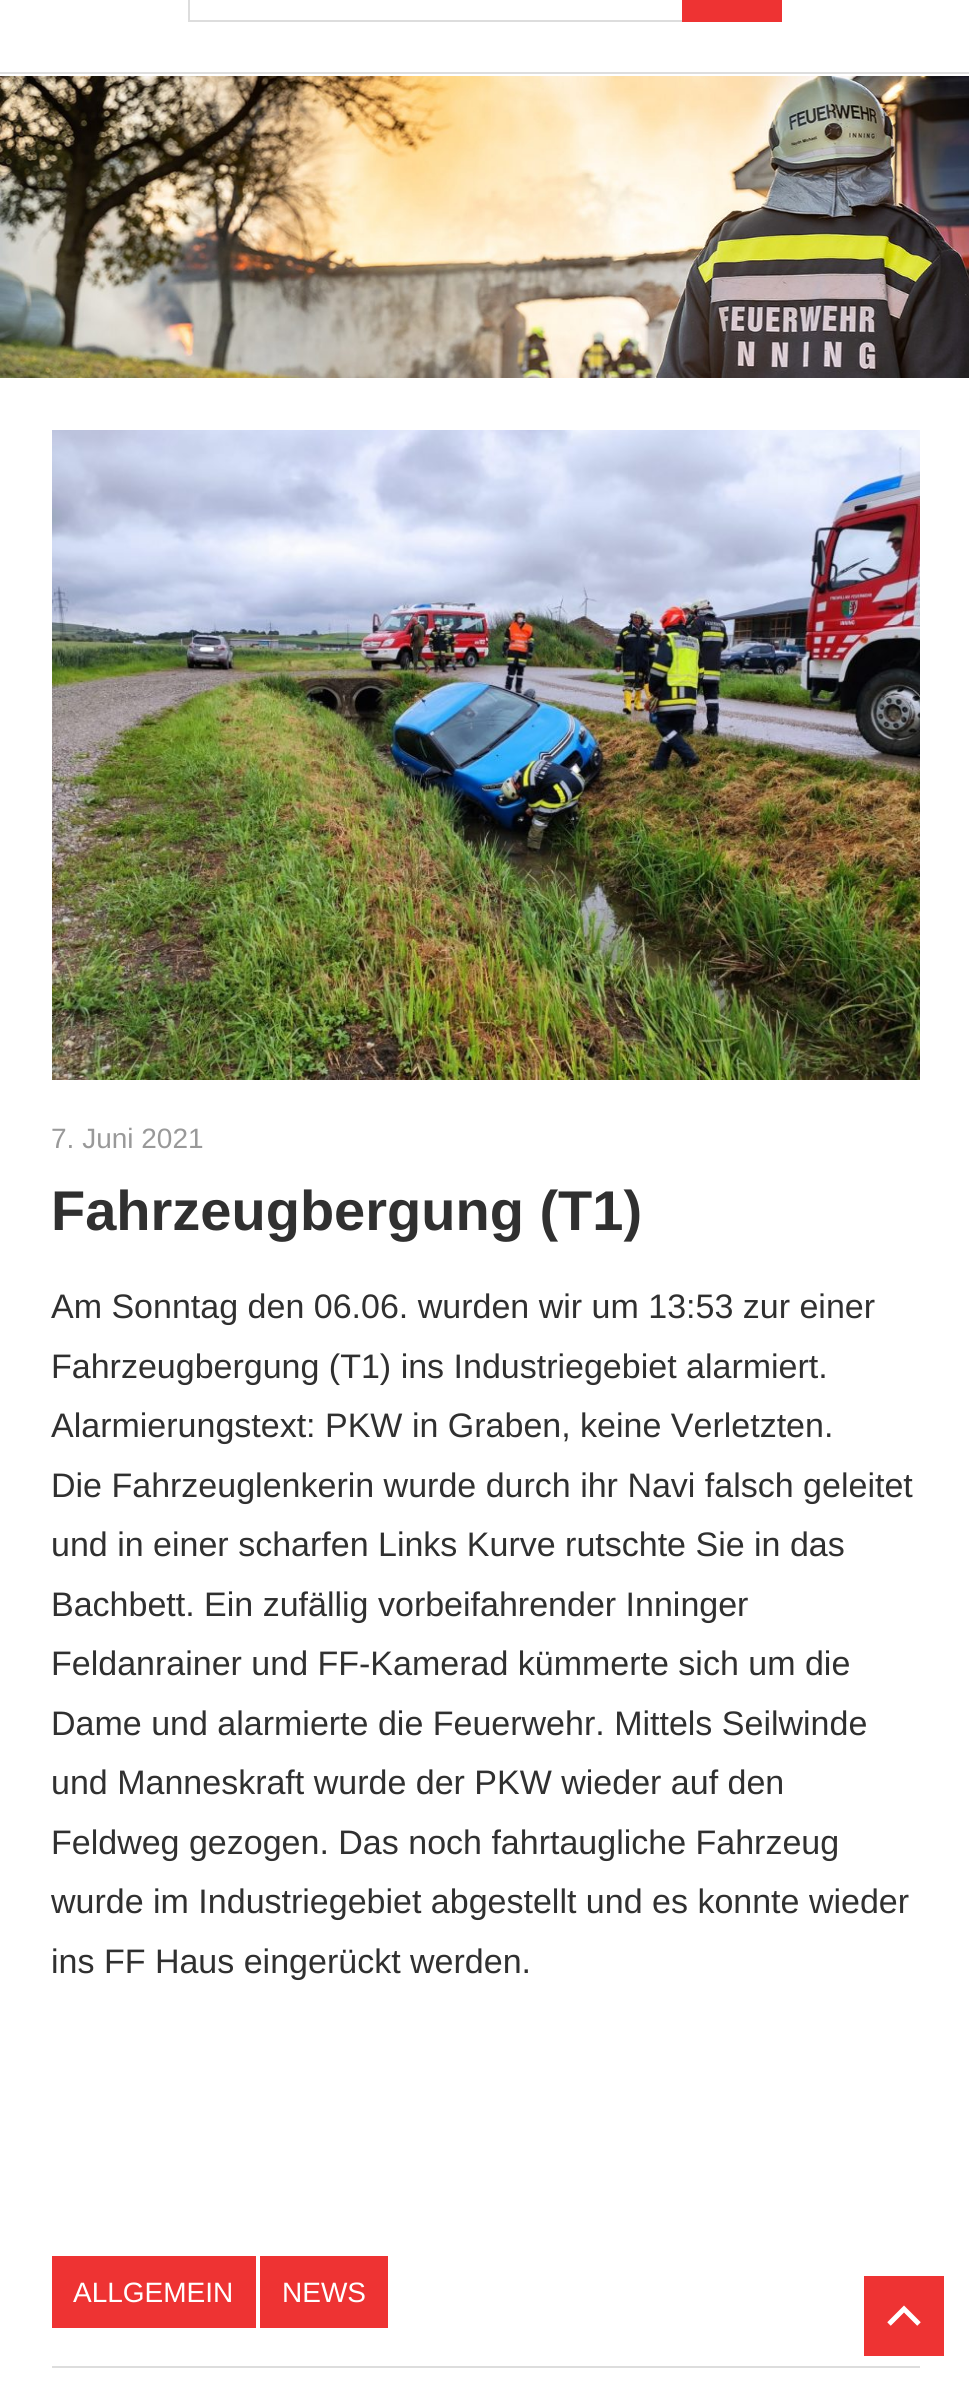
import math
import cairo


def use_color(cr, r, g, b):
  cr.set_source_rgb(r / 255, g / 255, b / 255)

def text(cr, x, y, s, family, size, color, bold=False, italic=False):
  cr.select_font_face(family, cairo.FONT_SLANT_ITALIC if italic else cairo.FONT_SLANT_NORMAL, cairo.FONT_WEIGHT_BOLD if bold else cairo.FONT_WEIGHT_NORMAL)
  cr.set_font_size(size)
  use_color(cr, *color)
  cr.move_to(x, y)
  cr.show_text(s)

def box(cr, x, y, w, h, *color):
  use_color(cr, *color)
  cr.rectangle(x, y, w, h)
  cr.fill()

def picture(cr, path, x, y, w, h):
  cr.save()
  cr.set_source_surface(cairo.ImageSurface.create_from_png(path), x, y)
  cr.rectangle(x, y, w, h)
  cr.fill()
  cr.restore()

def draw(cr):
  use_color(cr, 255, 255, 255)
  cr.paint()
  box(cr, 0, 72, 969, 2, 221, 221, 221)
  cr.rectangle(189, -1, 494, 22)
  cr.stroke()
  box(cr, 682, 0, 100, 22, 238, 51, 51)
  picture(cr, "img_01.png", 0, 76, 969, 302)
  picture(cr, "img_02.png", 52, 430, 868, 650)
  box(cr, 52, 2256, 204, 72, 238, 51, 51)
  box(cr, 260, 2256, 128, 72, 238, 51, 51)
  box(cr, 52, 2366, 868, 2, 221, 221, 221)
  box(cr, 864, 2276, 80, 80, 238, 51, 51)
  picture(cr, "img_03.png", 887, 2305, 34, 21)
  text(cr, 51, 1148, "7. Juni 2021", "Liberation Sans", 28, (153, 153, 153))
  text(cr, 51, 1230, "Fahrzeugbergung (T1)", "Liberation Sans", 56, (48, 48, 48), bold=True)
  text(cr, 51, 1318, "Am Sonntag den 06.06. wurden wir um 13:53 zur einer", "Liberation Sans", 34, (48, 48, 48))
  text(cr, 51, 1378, "Fahrzeugbergung (T1) ins Industriegebiet alarmiert.", "Liberation Sans", 34, (48, 48, 48))
  text(cr, 51, 1437, "Alarmierungstext: PKW in Graben, keine Verletzten.", "Liberation Sans", 34, (48, 48, 48))
  text(cr, 51, 1497, "Die Fahrzeuglenkerin wurde durch ihr Navi falsch geleitet", "Liberation Sans", 34, (48, 48, 48))
  text(cr, 51, 1556, "und in einer scharfen Links Kurve rutschte Sie in das", "Liberation Sans", 34, (48, 48, 48))
  text(cr, 51, 1616, "Bachbett. Ein zufällig vorbeifahrender Inninger", "Liberation Sans", 34, (48, 48, 48))
  text(cr, 51, 1675, "Feldanrainer und FF-Kamerad kümmerte sich um die", "Liberation Sans", 34, (48, 48, 48))
  text(cr, 51, 1735, "Dame und alarmierte die Feuerwehr. Mittels Seilwinde", "Liberation Sans", 34, (48, 48, 48))
  text(cr, 51, 1794, "und Manneskraft wurde der PKW wieder auf den", "Liberation Sans", 34, (48, 48, 48))
  text(cr, 51, 1854, "Feldweg gezogen. Das noch fahrtaugliche Fahrzeug", "Liberation Sans", 34, (48, 48, 48))
  text(cr, 51, 1913, "wurde im Industriegebiet abgestellt und es konnte wieder", "Liberation Sans", 34, (48, 48, 48))
  text(cr, 51, 1973, "ins FF Haus eingerückt werden.", "Liberation Sans", 34, (48, 48, 48))
  text(cr, 73, 2302, "ALLGEMEIN", "Liberation Sans", 28, (255, 255, 255))
  text(cr, 282, 2302, "NEWS", "Liberation Sans", 28, (255, 255, 255))


surface = cairo.ImageSurface(cairo.FORMAT_RGB24, 969, 2382)
cr = cairo.Context(surface)
options = cairo.FontOptions()
options.set_hint_metrics(cairo.HINT_METRICS_OFF)
options.set_hint_style(cairo.HINT_STYLE_NONE)
cr.set_font_options(options)
cr.set_miter_limit(4)
draw(cr)
surface.write_to_png("out.png")
